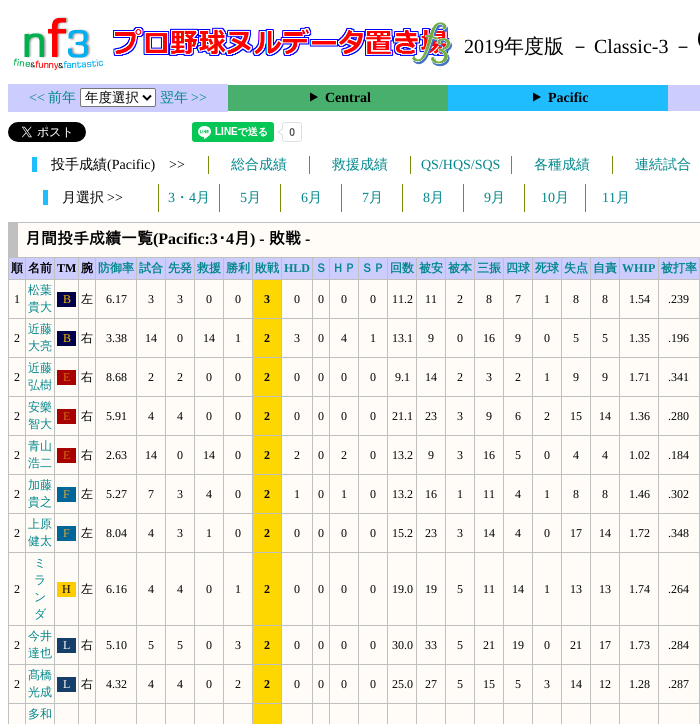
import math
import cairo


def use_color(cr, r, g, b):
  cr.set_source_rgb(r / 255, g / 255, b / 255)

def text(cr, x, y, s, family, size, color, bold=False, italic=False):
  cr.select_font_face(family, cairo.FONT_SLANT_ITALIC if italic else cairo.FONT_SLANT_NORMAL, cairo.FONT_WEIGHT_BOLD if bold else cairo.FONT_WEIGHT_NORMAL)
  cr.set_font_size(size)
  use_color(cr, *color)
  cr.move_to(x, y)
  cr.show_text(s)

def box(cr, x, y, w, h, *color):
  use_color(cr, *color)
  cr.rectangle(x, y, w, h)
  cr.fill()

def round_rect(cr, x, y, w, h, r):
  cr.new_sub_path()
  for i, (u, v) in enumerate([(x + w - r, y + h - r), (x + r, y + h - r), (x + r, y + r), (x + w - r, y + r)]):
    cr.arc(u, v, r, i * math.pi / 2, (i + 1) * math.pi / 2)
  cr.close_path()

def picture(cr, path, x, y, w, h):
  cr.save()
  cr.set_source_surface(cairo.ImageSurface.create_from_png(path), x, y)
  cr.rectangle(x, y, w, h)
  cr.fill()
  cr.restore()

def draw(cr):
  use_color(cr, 255, 255, 255)
  cr.paint()
  picture(cr, "img_01.png", 13, 16, 91, 54)
  picture(cr, "img_02.png", 113, 22, 340, 45)
  picture(cr, "img_03.png", 698, 32, 2, 14)
  box(cr, 8, 84, 220, 28, 204, 204, 255)
  use_color(cr, 255, 255, 255)
  round_rect(cr, 80.5, 88.5, 75, 18, 1.5)
  cr.fill_preserve()
  use_color(cr, 118, 118, 118)
  cr.set_line_width(1)
  cr.stroke()
  cr.new_path()
  cr.move_to(143, 95.5)
  cr.line_to(147, 99.5)
  cr.line_to(151, 95.5)
  use_color(cr, 0, 0, 0)
  cr.set_line_width(2)
  cr.stroke()
  box(cr, 228, 85, 220, 26, 73, 175, 109)
  use_color(cr, 0, 0, 0)
  cr.new_path()
  cr.move_to(310, 92.5)
  cr.line_to(318, 97)
  cr.line_to(310, 101.5)
  cr.close_path()
  cr.fill()
  box(cr, 448, 85, 220, 26, 32, 189, 254)
  use_color(cr, 0, 0, 0)
  cr.new_path()
  cr.move_to(533, 92.5)
  cr.line_to(541, 97)
  cr.line_to(533, 101.5)
  cr.close_path()
  cr.fill()
  box(cr, 668, 85, 32, 26, 204, 204, 255)
  picture(cr, "img_04.png", 8, 122, 78, 20)
  picture(cr, "img_05.png", 192, 122, 110, 20)
  box(cr, 32, 157, 5, 15, 32, 189, 254)
  box(cr, 208, 156, 1, 18, 124, 140, 14)
  box(cr, 309, 156, 1, 18, 124, 140, 14)
  box(cr, 410, 156, 1, 18, 124, 140, 14)
  box(cr, 511, 156, 1, 18, 124, 140, 14)
  box(cr, 612, 156, 1, 18, 124, 140, 14)
  box(cr, 43, 190, 5, 15, 32, 189, 254)
  box(cr, 158, 184, 1, 28, 124, 140, 14)
  box(cr, 219, 184, 1, 28, 124, 140, 14)
  box(cr, 280, 184, 1, 28, 124, 140, 14)
  box(cr, 341, 184, 1, 28, 124, 140, 14)
  box(cr, 402, 184, 1, 28, 124, 140, 14)
  box(cr, 463, 184, 1, 28, 124, 140, 14)
  box(cr, 524, 184, 1, 28, 124, 140, 14)
  box(cr, 585, 184, 1, 28, 124, 140, 14)
  box(cr, 9, 223, 691, 501, 255, 252, 248)
  box(cr, 8, 222, 692, 1, 192, 192, 192)
  box(cr, 8, 222, 1, 502, 192, 192, 192)
  box(cr, 9, 223, 9, 34, 192, 192, 192)
  box(cr, 9, 258, 690, 21, 204, 204, 255)
  box(cr, 699, 703, 1, 21, 192, 192, 192)
  box(cr, 658, 703, 42, 1, 192, 192, 192)
  box(cr, 699, 664, 1, 40, 192, 192, 192)
  box(cr, 658, 664, 42, 1, 192, 192, 192)
  box(cr, 699, 625, 1, 40, 192, 192, 192)
  box(cr, 658, 625, 42, 1, 192, 192, 192)
  box(cr, 699, 552, 1, 74, 192, 192, 192)
  box(cr, 658, 552, 42, 1, 192, 192, 192)
  box(cr, 699, 513, 1, 40, 192, 192, 192)
  box(cr, 658, 513, 42, 1, 192, 192, 192)
  box(cr, 699, 474, 1, 40, 192, 192, 192)
  box(cr, 658, 474, 42, 1, 192, 192, 192)
  box(cr, 699, 435, 1, 40, 192, 192, 192)
  box(cr, 658, 435, 42, 1, 192, 192, 192)
  box(cr, 699, 396, 1, 40, 192, 192, 192)
  box(cr, 658, 396, 42, 1, 192, 192, 192)
  box(cr, 699, 357, 1, 40, 192, 192, 192)
  box(cr, 658, 357, 42, 1, 192, 192, 192)
  box(cr, 699, 318, 1, 40, 192, 192, 192)
  box(cr, 658, 318, 42, 1, 192, 192, 192)
  box(cr, 699, 279, 1, 40, 192, 192, 192)
  box(cr, 658, 279, 42, 1, 192, 192, 192)
  box(cr, 699, 257, 1, 23, 192, 192, 192)
  box(cr, 658, 257, 42, 1, 192, 192, 192)
  box(cr, 658, 703, 1, 21, 192, 192, 192)
  box(cr, 619, 703, 40, 1, 192, 192, 192)
  box(cr, 658, 664, 1, 40, 192, 192, 192)
  box(cr, 619, 664, 40, 1, 192, 192, 192)
  box(cr, 658, 625, 1, 40, 192, 192, 192)
  box(cr, 619, 625, 40, 1, 192, 192, 192)
  box(cr, 658, 552, 1, 74, 192, 192, 192)
  box(cr, 619, 552, 40, 1, 192, 192, 192)
  box(cr, 658, 513, 1, 40, 192, 192, 192)
  box(cr, 619, 513, 40, 1, 192, 192, 192)
  box(cr, 658, 474, 1, 40, 192, 192, 192)
  box(cr, 619, 474, 40, 1, 192, 192, 192)
  box(cr, 658, 435, 1, 40, 192, 192, 192)
  box(cr, 619, 435, 40, 1, 192, 192, 192)
  box(cr, 658, 396, 1, 40, 192, 192, 192)
  box(cr, 619, 396, 40, 1, 192, 192, 192)
  box(cr, 658, 357, 1, 40, 192, 192, 192)
  box(cr, 619, 357, 40, 1, 192, 192, 192)
  box(cr, 658, 318, 1, 40, 192, 192, 192)
  box(cr, 619, 318, 40, 1, 192, 192, 192)
  box(cr, 658, 279, 1, 40, 192, 192, 192)
  box(cr, 619, 279, 40, 1, 192, 192, 192)
  box(cr, 658, 257, 1, 23, 192, 192, 192)
  box(cr, 619, 257, 40, 1, 192, 192, 192)
  box(cr, 619, 703, 1, 21, 192, 192, 192)
  box(cr, 590, 703, 30, 1, 192, 192, 192)
  box(cr, 619, 664, 1, 40, 192, 192, 192)
  box(cr, 590, 664, 30, 1, 192, 192, 192)
  box(cr, 619, 625, 1, 40, 192, 192, 192)
  box(cr, 590, 625, 30, 1, 192, 192, 192)
  box(cr, 619, 552, 1, 74, 192, 192, 192)
  box(cr, 590, 552, 30, 1, 192, 192, 192)
  box(cr, 619, 513, 1, 40, 192, 192, 192)
  box(cr, 590, 513, 30, 1, 192, 192, 192)
  box(cr, 619, 474, 1, 40, 192, 192, 192)
  box(cr, 590, 474, 30, 1, 192, 192, 192)
  box(cr, 619, 435, 1, 40, 192, 192, 192)
  box(cr, 590, 435, 30, 1, 192, 192, 192)
  box(cr, 619, 396, 1, 40, 192, 192, 192)
  box(cr, 590, 396, 30, 1, 192, 192, 192)
  box(cr, 619, 357, 1, 40, 192, 192, 192)
  box(cr, 590, 357, 30, 1, 192, 192, 192)
  box(cr, 619, 318, 1, 40, 192, 192, 192)
  box(cr, 590, 318, 30, 1, 192, 192, 192)
  box(cr, 619, 279, 1, 40, 192, 192, 192)
  box(cr, 590, 279, 30, 1, 192, 192, 192)
  box(cr, 619, 257, 1, 23, 192, 192, 192)
  box(cr, 590, 257, 30, 1, 192, 192, 192)
  box(cr, 590, 703, 1, 21, 192, 192, 192)
  box(cr, 561, 703, 30, 1, 192, 192, 192)
  box(cr, 590, 664, 1, 40, 192, 192, 192)
  box(cr, 561, 664, 30, 1, 192, 192, 192)
  box(cr, 590, 625, 1, 40, 192, 192, 192)
  box(cr, 561, 625, 30, 1, 192, 192, 192)
  box(cr, 590, 552, 1, 74, 192, 192, 192)
  box(cr, 561, 552, 30, 1, 192, 192, 192)
  box(cr, 590, 513, 1, 40, 192, 192, 192)
  box(cr, 561, 513, 30, 1, 192, 192, 192)
  box(cr, 590, 474, 1, 40, 192, 192, 192)
  box(cr, 561, 474, 30, 1, 192, 192, 192)
  box(cr, 590, 435, 1, 40, 192, 192, 192)
  box(cr, 561, 435, 30, 1, 192, 192, 192)
  box(cr, 590, 396, 1, 40, 192, 192, 192)
  box(cr, 561, 396, 30, 1, 192, 192, 192)
  box(cr, 590, 357, 1, 40, 192, 192, 192)
  box(cr, 561, 357, 30, 1, 192, 192, 192)
  box(cr, 590, 318, 1, 40, 192, 192, 192)
  box(cr, 561, 318, 30, 1, 192, 192, 192)
  box(cr, 590, 279, 1, 40, 192, 192, 192)
  box(cr, 561, 279, 30, 1, 192, 192, 192)
  box(cr, 590, 257, 1, 23, 192, 192, 192)
  box(cr, 561, 257, 30, 1, 192, 192, 192)
  box(cr, 561, 703, 1, 21, 192, 192, 192)
  box(cr, 532, 703, 30, 1, 192, 192, 192)
  box(cr, 561, 664, 1, 40, 192, 192, 192)
  box(cr, 532, 664, 30, 1, 192, 192, 192)
  box(cr, 561, 625, 1, 40, 192, 192, 192)
  box(cr, 532, 625, 30, 1, 192, 192, 192)
  box(cr, 561, 552, 1, 74, 192, 192, 192)
  box(cr, 532, 552, 30, 1, 192, 192, 192)
  box(cr, 561, 513, 1, 40, 192, 192, 192)
  box(cr, 532, 513, 30, 1, 192, 192, 192)
  box(cr, 561, 474, 1, 40, 192, 192, 192)
  box(cr, 532, 474, 30, 1, 192, 192, 192)
  box(cr, 561, 435, 1, 40, 192, 192, 192)
  box(cr, 532, 435, 30, 1, 192, 192, 192)
  box(cr, 561, 396, 1, 40, 192, 192, 192)
  box(cr, 532, 396, 30, 1, 192, 192, 192)
  box(cr, 561, 357, 1, 40, 192, 192, 192)
  box(cr, 532, 357, 30, 1, 192, 192, 192)
  box(cr, 561, 318, 1, 40, 192, 192, 192)
  box(cr, 532, 318, 30, 1, 192, 192, 192)
  box(cr, 561, 279, 1, 40, 192, 192, 192)
  box(cr, 532, 279, 30, 1, 192, 192, 192)
  box(cr, 561, 257, 1, 23, 192, 192, 192)
  box(cr, 532, 257, 30, 1, 192, 192, 192)
  box(cr, 532, 703, 1, 21, 192, 192, 192)
  box(cr, 503, 703, 30, 1, 192, 192, 192)
  box(cr, 532, 664, 1, 40, 192, 192, 192)
  box(cr, 503, 664, 30, 1, 192, 192, 192)
  box(cr, 532, 625, 1, 40, 192, 192, 192)
  box(cr, 503, 625, 30, 1, 192, 192, 192)
  box(cr, 532, 552, 1, 74, 192, 192, 192)
  box(cr, 503, 552, 30, 1, 192, 192, 192)
  box(cr, 532, 513, 1, 40, 192, 192, 192)
  box(cr, 503, 513, 30, 1, 192, 192, 192)
  box(cr, 532, 474, 1, 40, 192, 192, 192)
  box(cr, 503, 474, 30, 1, 192, 192, 192)
  box(cr, 532, 435, 1, 40, 192, 192, 192)
  box(cr, 503, 435, 30, 1, 192, 192, 192)
  box(cr, 532, 396, 1, 40, 192, 192, 192)
  box(cr, 503, 396, 30, 1, 192, 192, 192)
  box(cr, 532, 357, 1, 40, 192, 192, 192)
  box(cr, 503, 357, 30, 1, 192, 192, 192)
  box(cr, 532, 318, 1, 40, 192, 192, 192)
  box(cr, 503, 318, 30, 1, 192, 192, 192)
  box(cr, 532, 279, 1, 40, 192, 192, 192)
  box(cr, 503, 279, 30, 1, 192, 192, 192)
  box(cr, 532, 257, 1, 23, 192, 192, 192)
  box(cr, 503, 257, 30, 1, 192, 192, 192)
  box(cr, 503, 703, 1, 21, 192, 192, 192)
  box(cr, 474, 703, 30, 1, 192, 192, 192)
  box(cr, 503, 664, 1, 40, 192, 192, 192)
  box(cr, 474, 664, 30, 1, 192, 192, 192)
  box(cr, 503, 625, 1, 40, 192, 192, 192)
  box(cr, 474, 625, 30, 1, 192, 192, 192)
  box(cr, 503, 552, 1, 74, 192, 192, 192)
  box(cr, 474, 552, 30, 1, 192, 192, 192)
  box(cr, 503, 513, 1, 40, 192, 192, 192)
  box(cr, 474, 513, 30, 1, 192, 192, 192)
  box(cr, 503, 474, 1, 40, 192, 192, 192)
  box(cr, 474, 474, 30, 1, 192, 192, 192)
  box(cr, 503, 435, 1, 40, 192, 192, 192)
  box(cr, 474, 435, 30, 1, 192, 192, 192)
  box(cr, 503, 396, 1, 40, 192, 192, 192)
  box(cr, 474, 396, 30, 1, 192, 192, 192)
  box(cr, 503, 357, 1, 40, 192, 192, 192)
  box(cr, 474, 357, 30, 1, 192, 192, 192)
  box(cr, 503, 318, 1, 40, 192, 192, 192)
  box(cr, 474, 318, 30, 1, 192, 192, 192)
  box(cr, 503, 279, 1, 40, 192, 192, 192)
  box(cr, 474, 279, 30, 1, 192, 192, 192)
  box(cr, 503, 257, 1, 23, 192, 192, 192)
  box(cr, 474, 257, 30, 1, 192, 192, 192)
  box(cr, 474, 703, 1, 21, 192, 192, 192)
  box(cr, 445, 703, 30, 1, 192, 192, 192)
  box(cr, 474, 664, 1, 40, 192, 192, 192)
  box(cr, 445, 664, 30, 1, 192, 192, 192)
  box(cr, 474, 625, 1, 40, 192, 192, 192)
  box(cr, 445, 625, 30, 1, 192, 192, 192)
  box(cr, 474, 552, 1, 74, 192, 192, 192)
  box(cr, 445, 552, 30, 1, 192, 192, 192)
  box(cr, 474, 513, 1, 40, 192, 192, 192)
  box(cr, 445, 513, 30, 1, 192, 192, 192)
  box(cr, 474, 474, 1, 40, 192, 192, 192)
  box(cr, 445, 474, 30, 1, 192, 192, 192)
  box(cr, 474, 435, 1, 40, 192, 192, 192)
  box(cr, 445, 435, 30, 1, 192, 192, 192)
  box(cr, 474, 396, 1, 40, 192, 192, 192)
  box(cr, 445, 396, 30, 1, 192, 192, 192)
  box(cr, 474, 357, 1, 40, 192, 192, 192)
  box(cr, 445, 357, 30, 1, 192, 192, 192)
  box(cr, 474, 318, 1, 40, 192, 192, 192)
  box(cr, 445, 318, 30, 1, 192, 192, 192)
  box(cr, 474, 279, 1, 40, 192, 192, 192)
  box(cr, 445, 279, 30, 1, 192, 192, 192)
  box(cr, 474, 257, 1, 23, 192, 192, 192)
  box(cr, 445, 257, 30, 1, 192, 192, 192)
  box(cr, 445, 703, 1, 21, 192, 192, 192)
  box(cr, 416, 703, 30, 1, 192, 192, 192)
  box(cr, 445, 664, 1, 40, 192, 192, 192)
  box(cr, 416, 664, 30, 1, 192, 192, 192)
  box(cr, 445, 625, 1, 40, 192, 192, 192)
  box(cr, 416, 625, 30, 1, 192, 192, 192)
  box(cr, 445, 552, 1, 74, 192, 192, 192)
  box(cr, 416, 552, 30, 1, 192, 192, 192)
  box(cr, 445, 513, 1, 40, 192, 192, 192)
  box(cr, 416, 513, 30, 1, 192, 192, 192)
  box(cr, 445, 474, 1, 40, 192, 192, 192)
  box(cr, 416, 474, 30, 1, 192, 192, 192)
  box(cr, 445, 435, 1, 40, 192, 192, 192)
  box(cr, 416, 435, 30, 1, 192, 192, 192)
  box(cr, 445, 396, 1, 40, 192, 192, 192)
  box(cr, 416, 396, 30, 1, 192, 192, 192)
  box(cr, 445, 357, 1, 40, 192, 192, 192)
  box(cr, 416, 357, 30, 1, 192, 192, 192)
  box(cr, 445, 318, 1, 40, 192, 192, 192)
  box(cr, 416, 318, 30, 1, 192, 192, 192)
  box(cr, 445, 279, 1, 40, 192, 192, 192)
  box(cr, 416, 279, 30, 1, 192, 192, 192)
  box(cr, 445, 257, 1, 23, 192, 192, 192)
  box(cr, 416, 257, 30, 1, 192, 192, 192)
  box(cr, 416, 703, 1, 21, 192, 192, 192)
  box(cr, 387, 703, 30, 1, 192, 192, 192)
  box(cr, 416, 664, 1, 40, 192, 192, 192)
  box(cr, 387, 664, 30, 1, 192, 192, 192)
  box(cr, 416, 625, 1, 40, 192, 192, 192)
  box(cr, 387, 625, 30, 1, 192, 192, 192)
  box(cr, 416, 552, 1, 74, 192, 192, 192)
  box(cr, 387, 552, 30, 1, 192, 192, 192)
  box(cr, 416, 513, 1, 40, 192, 192, 192)
  box(cr, 387, 513, 30, 1, 192, 192, 192)
  box(cr, 416, 474, 1, 40, 192, 192, 192)
  box(cr, 387, 474, 30, 1, 192, 192, 192)
  box(cr, 416, 435, 1, 40, 192, 192, 192)
  box(cr, 387, 435, 30, 1, 192, 192, 192)
  box(cr, 416, 396, 1, 40, 192, 192, 192)
  box(cr, 387, 396, 30, 1, 192, 192, 192)
  box(cr, 416, 357, 1, 40, 192, 192, 192)
  box(cr, 387, 357, 30, 1, 192, 192, 192)
  box(cr, 416, 318, 1, 40, 192, 192, 192)
  box(cr, 387, 318, 30, 1, 192, 192, 192)
  box(cr, 416, 279, 1, 40, 192, 192, 192)
  box(cr, 387, 279, 30, 1, 192, 192, 192)
  box(cr, 416, 257, 1, 23, 192, 192, 192)
  box(cr, 387, 257, 30, 1, 192, 192, 192)
  box(cr, 387, 703, 1, 21, 192, 192, 192)
  box(cr, 358, 703, 30, 1, 192, 192, 192)
  box(cr, 387, 664, 1, 40, 192, 192, 192)
  box(cr, 358, 664, 30, 1, 192, 192, 192)
  box(cr, 387, 625, 1, 40, 192, 192, 192)
  box(cr, 358, 625, 30, 1, 192, 192, 192)
  box(cr, 387, 552, 1, 74, 192, 192, 192)
  box(cr, 358, 552, 30, 1, 192, 192, 192)
  box(cr, 387, 513, 1, 40, 192, 192, 192)
  box(cr, 358, 513, 30, 1, 192, 192, 192)
  box(cr, 387, 474, 1, 40, 192, 192, 192)
  box(cr, 358, 474, 30, 1, 192, 192, 192)
  box(cr, 387, 435, 1, 40, 192, 192, 192)
  box(cr, 358, 435, 30, 1, 192, 192, 192)
  box(cr, 387, 396, 1, 40, 192, 192, 192)
  box(cr, 358, 396, 30, 1, 192, 192, 192)
  box(cr, 387, 357, 1, 40, 192, 192, 192)
  box(cr, 358, 357, 30, 1, 192, 192, 192)
  box(cr, 387, 318, 1, 40, 192, 192, 192)
  box(cr, 358, 318, 30, 1, 192, 192, 192)
  box(cr, 387, 279, 1, 40, 192, 192, 192)
  box(cr, 358, 279, 30, 1, 192, 192, 192)
  box(cr, 387, 257, 1, 23, 192, 192, 192)
  box(cr, 358, 257, 30, 1, 192, 192, 192)
  box(cr, 358, 703, 1, 21, 192, 192, 192)
  box(cr, 329, 703, 30, 1, 192, 192, 192)
  box(cr, 358, 664, 1, 40, 192, 192, 192)
  box(cr, 329, 664, 30, 1, 192, 192, 192)
  box(cr, 358, 625, 1, 40, 192, 192, 192)
  box(cr, 329, 625, 30, 1, 192, 192, 192)
  box(cr, 358, 552, 1, 74, 192, 192, 192)
  box(cr, 329, 552, 30, 1, 192, 192, 192)
  box(cr, 358, 513, 1, 40, 192, 192, 192)
  box(cr, 329, 513, 30, 1, 192, 192, 192)
  box(cr, 358, 474, 1, 40, 192, 192, 192)
  box(cr, 329, 474, 30, 1, 192, 192, 192)
  box(cr, 358, 435, 1, 40, 192, 192, 192)
  box(cr, 329, 435, 30, 1, 192, 192, 192)
  box(cr, 358, 396, 1, 40, 192, 192, 192)
  box(cr, 329, 396, 30, 1, 192, 192, 192)
  box(cr, 358, 357, 1, 40, 192, 192, 192)
  box(cr, 329, 357, 30, 1, 192, 192, 192)
  box(cr, 358, 318, 1, 40, 192, 192, 192)
  box(cr, 329, 318, 30, 1, 192, 192, 192)
  box(cr, 358, 279, 1, 40, 192, 192, 192)
  box(cr, 329, 279, 30, 1, 192, 192, 192)
  box(cr, 358, 257, 1, 23, 192, 192, 192)
  box(cr, 329, 257, 30, 1, 192, 192, 192)
  box(cr, 329, 703, 1, 21, 192, 192, 192)
  box(cr, 312, 703, 18, 1, 192, 192, 192)
  box(cr, 329, 664, 1, 40, 192, 192, 192)
  box(cr, 312, 664, 18, 1, 192, 192, 192)
  box(cr, 329, 625, 1, 40, 192, 192, 192)
  box(cr, 312, 625, 18, 1, 192, 192, 192)
  box(cr, 329, 552, 1, 74, 192, 192, 192)
  box(cr, 312, 552, 18, 1, 192, 192, 192)
  box(cr, 329, 513, 1, 40, 192, 192, 192)
  box(cr, 312, 513, 18, 1, 192, 192, 192)
  box(cr, 329, 474, 1, 40, 192, 192, 192)
  box(cr, 312, 474, 18, 1, 192, 192, 192)
  box(cr, 329, 435, 1, 40, 192, 192, 192)
  box(cr, 312, 435, 18, 1, 192, 192, 192)
  box(cr, 329, 396, 1, 40, 192, 192, 192)
  box(cr, 312, 396, 18, 1, 192, 192, 192)
  box(cr, 329, 357, 1, 40, 192, 192, 192)
  box(cr, 312, 357, 18, 1, 192, 192, 192)
  box(cr, 329, 318, 1, 40, 192, 192, 192)
  box(cr, 312, 318, 18, 1, 192, 192, 192)
  box(cr, 329, 279, 1, 40, 192, 192, 192)
  box(cr, 312, 279, 18, 1, 192, 192, 192)
  box(cr, 329, 257, 1, 23, 192, 192, 192)
  box(cr, 312, 257, 18, 1, 192, 192, 192)
  box(cr, 312, 703, 1, 21, 192, 192, 192)
  box(cr, 281, 703, 32, 1, 192, 192, 192)
  box(cr, 312, 664, 1, 40, 192, 192, 192)
  box(cr, 281, 664, 32, 1, 192, 192, 192)
  box(cr, 312, 625, 1, 40, 192, 192, 192)
  box(cr, 281, 625, 32, 1, 192, 192, 192)
  box(cr, 312, 552, 1, 74, 192, 192, 192)
  box(cr, 281, 552, 32, 1, 192, 192, 192)
  box(cr, 312, 513, 1, 40, 192, 192, 192)
  box(cr, 281, 513, 32, 1, 192, 192, 192)
  box(cr, 312, 474, 1, 40, 192, 192, 192)
  box(cr, 281, 474, 32, 1, 192, 192, 192)
  box(cr, 312, 435, 1, 40, 192, 192, 192)
  box(cr, 281, 435, 32, 1, 192, 192, 192)
  box(cr, 312, 396, 1, 40, 192, 192, 192)
  box(cr, 281, 396, 32, 1, 192, 192, 192)
  box(cr, 312, 357, 1, 40, 192, 192, 192)
  box(cr, 281, 357, 32, 1, 192, 192, 192)
  box(cr, 312, 318, 1, 40, 192, 192, 192)
  box(cr, 281, 318, 32, 1, 192, 192, 192)
  box(cr, 312, 279, 1, 40, 192, 192, 192)
  box(cr, 281, 279, 32, 1, 192, 192, 192)
  box(cr, 312, 257, 1, 23, 192, 192, 192)
  box(cr, 281, 257, 32, 1, 192, 192, 192)
  box(cr, 281, 703, 1, 21, 192, 192, 192)
  box(cr, 252, 703, 30, 1, 192, 192, 192)
  box(cr, 281, 664, 1, 40, 192, 192, 192)
  box(cr, 252, 664, 30, 1, 192, 192, 192)
  box(cr, 281, 625, 1, 40, 192, 192, 192)
  box(cr, 252, 625, 30, 1, 192, 192, 192)
  box(cr, 281, 552, 1, 74, 192, 192, 192)
  box(cr, 252, 552, 30, 1, 192, 192, 192)
  box(cr, 281, 513, 1, 40, 192, 192, 192)
  box(cr, 252, 513, 30, 1, 192, 192, 192)
  box(cr, 281, 474, 1, 40, 192, 192, 192)
  box(cr, 252, 474, 30, 1, 192, 192, 192)
  box(cr, 281, 435, 1, 40, 192, 192, 192)
  box(cr, 252, 435, 30, 1, 192, 192, 192)
  box(cr, 281, 396, 1, 40, 192, 192, 192)
  box(cr, 252, 396, 30, 1, 192, 192, 192)
  box(cr, 281, 357, 1, 40, 192, 192, 192)
  box(cr, 252, 357, 30, 1, 192, 192, 192)
  box(cr, 281, 318, 1, 40, 192, 192, 192)
  box(cr, 252, 318, 30, 1, 192, 192, 192)
  box(cr, 281, 279, 1, 40, 192, 192, 192)
  box(cr, 252, 279, 30, 1, 192, 192, 192)
  box(cr, 281, 257, 1, 23, 192, 192, 192)
  box(cr, 252, 257, 30, 1, 192, 192, 192)
  box(cr, 252, 703, 1, 21, 192, 192, 192)
  box(cr, 223, 703, 30, 1, 192, 192, 192)
  box(cr, 252, 664, 1, 40, 192, 192, 192)
  box(cr, 223, 664, 30, 1, 192, 192, 192)
  box(cr, 252, 625, 1, 40, 192, 192, 192)
  box(cr, 223, 625, 30, 1, 192, 192, 192)
  box(cr, 252, 552, 1, 74, 192, 192, 192)
  box(cr, 223, 552, 30, 1, 192, 192, 192)
  box(cr, 252, 513, 1, 40, 192, 192, 192)
  box(cr, 223, 513, 30, 1, 192, 192, 192)
  box(cr, 252, 474, 1, 40, 192, 192, 192)
  box(cr, 223, 474, 30, 1, 192, 192, 192)
  box(cr, 252, 435, 1, 40, 192, 192, 192)
  box(cr, 223, 435, 30, 1, 192, 192, 192)
  box(cr, 252, 396, 1, 40, 192, 192, 192)
  box(cr, 223, 396, 30, 1, 192, 192, 192)
  box(cr, 252, 357, 1, 40, 192, 192, 192)
  box(cr, 223, 357, 30, 1, 192, 192, 192)
  box(cr, 252, 318, 1, 40, 192, 192, 192)
  box(cr, 223, 318, 30, 1, 192, 192, 192)
  box(cr, 252, 279, 1, 40, 192, 192, 192)
  box(cr, 223, 279, 30, 1, 192, 192, 192)
  box(cr, 252, 257, 1, 23, 192, 192, 192)
  box(cr, 223, 257, 30, 1, 192, 192, 192)
  box(cr, 223, 703, 1, 21, 192, 192, 192)
  box(cr, 194, 703, 30, 1, 192, 192, 192)
  box(cr, 223, 664, 1, 40, 192, 192, 192)
  box(cr, 194, 664, 30, 1, 192, 192, 192)
  box(cr, 223, 625, 1, 40, 192, 192, 192)
  box(cr, 194, 625, 30, 1, 192, 192, 192)
  box(cr, 223, 552, 1, 74, 192, 192, 192)
  box(cr, 194, 552, 30, 1, 192, 192, 192)
  box(cr, 223, 513, 1, 40, 192, 192, 192)
  box(cr, 194, 513, 30, 1, 192, 192, 192)
  box(cr, 223, 474, 1, 40, 192, 192, 192)
  box(cr, 194, 474, 30, 1, 192, 192, 192)
  box(cr, 223, 435, 1, 40, 192, 192, 192)
  box(cr, 194, 435, 30, 1, 192, 192, 192)
  box(cr, 223, 396, 1, 40, 192, 192, 192)
  box(cr, 194, 396, 30, 1, 192, 192, 192)
  box(cr, 223, 357, 1, 40, 192, 192, 192)
  box(cr, 194, 357, 30, 1, 192, 192, 192)
  box(cr, 223, 318, 1, 40, 192, 192, 192)
  box(cr, 194, 318, 30, 1, 192, 192, 192)
  box(cr, 223, 279, 1, 40, 192, 192, 192)
  box(cr, 194, 279, 30, 1, 192, 192, 192)
  box(cr, 223, 257, 1, 23, 192, 192, 192)
  box(cr, 194, 257, 30, 1, 192, 192, 192)
  box(cr, 194, 703, 1, 21, 192, 192, 192)
  box(cr, 165, 703, 30, 1, 192, 192, 192)
  box(cr, 194, 664, 1, 40, 192, 192, 192)
  box(cr, 165, 664, 30, 1, 192, 192, 192)
  box(cr, 194, 625, 1, 40, 192, 192, 192)
  box(cr, 165, 625, 30, 1, 192, 192, 192)
  box(cr, 194, 552, 1, 74, 192, 192, 192)
  box(cr, 165, 552, 30, 1, 192, 192, 192)
  box(cr, 194, 513, 1, 40, 192, 192, 192)
  box(cr, 165, 513, 30, 1, 192, 192, 192)
  box(cr, 194, 474, 1, 40, 192, 192, 192)
  box(cr, 165, 474, 30, 1, 192, 192, 192)
  box(cr, 194, 435, 1, 40, 192, 192, 192)
  box(cr, 165, 435, 30, 1, 192, 192, 192)
  box(cr, 194, 396, 1, 40, 192, 192, 192)
  box(cr, 165, 396, 30, 1, 192, 192, 192)
  box(cr, 194, 357, 1, 40, 192, 192, 192)
  box(cr, 165, 357, 30, 1, 192, 192, 192)
  box(cr, 194, 318, 1, 40, 192, 192, 192)
  box(cr, 165, 318, 30, 1, 192, 192, 192)
  box(cr, 194, 279, 1, 40, 192, 192, 192)
  box(cr, 165, 279, 30, 1, 192, 192, 192)
  box(cr, 194, 257, 1, 23, 192, 192, 192)
  box(cr, 165, 257, 30, 1, 192, 192, 192)
  box(cr, 165, 703, 1, 21, 192, 192, 192)
  box(cr, 136, 703, 30, 1, 192, 192, 192)
  box(cr, 165, 664, 1, 40, 192, 192, 192)
  box(cr, 136, 664, 30, 1, 192, 192, 192)
  box(cr, 165, 625, 1, 40, 192, 192, 192)
  box(cr, 136, 625, 30, 1, 192, 192, 192)
  box(cr, 165, 552, 1, 74, 192, 192, 192)
  box(cr, 136, 552, 30, 1, 192, 192, 192)
  box(cr, 165, 513, 1, 40, 192, 192, 192)
  box(cr, 136, 513, 30, 1, 192, 192, 192)
  box(cr, 165, 474, 1, 40, 192, 192, 192)
  box(cr, 136, 474, 30, 1, 192, 192, 192)
  box(cr, 165, 435, 1, 40, 192, 192, 192)
  box(cr, 136, 435, 30, 1, 192, 192, 192)
  box(cr, 165, 396, 1, 40, 192, 192, 192)
  box(cr, 136, 396, 30, 1, 192, 192, 192)
  box(cr, 165, 357, 1, 40, 192, 192, 192)
  box(cr, 136, 357, 30, 1, 192, 192, 192)
  box(cr, 165, 318, 1, 40, 192, 192, 192)
  box(cr, 136, 318, 30, 1, 192, 192, 192)
  box(cr, 165, 279, 1, 40, 192, 192, 192)
  box(cr, 136, 279, 30, 1, 192, 192, 192)
  box(cr, 165, 257, 1, 23, 192, 192, 192)
  box(cr, 136, 257, 30, 1, 192, 192, 192)
  box(cr, 136, 703, 1, 21, 192, 192, 192)
  box(cr, 95, 703, 42, 1, 192, 192, 192)
  box(cr, 136, 664, 1, 40, 192, 192, 192)
  box(cr, 95, 664, 42, 1, 192, 192, 192)
  box(cr, 136, 625, 1, 40, 192, 192, 192)
  box(cr, 95, 625, 42, 1, 192, 192, 192)
  box(cr, 136, 552, 1, 74, 192, 192, 192)
  box(cr, 95, 552, 42, 1, 192, 192, 192)
  box(cr, 136, 513, 1, 40, 192, 192, 192)
  box(cr, 95, 513, 42, 1, 192, 192, 192)
  box(cr, 136, 474, 1, 40, 192, 192, 192)
  box(cr, 95, 474, 42, 1, 192, 192, 192)
  box(cr, 136, 435, 1, 40, 192, 192, 192)
  box(cr, 95, 435, 42, 1, 192, 192, 192)
  box(cr, 136, 396, 1, 40, 192, 192, 192)
  box(cr, 95, 396, 42, 1, 192, 192, 192)
  box(cr, 136, 357, 1, 40, 192, 192, 192)
  box(cr, 95, 357, 42, 1, 192, 192, 192)
  box(cr, 136, 318, 1, 40, 192, 192, 192)
  box(cr, 95, 318, 42, 1, 192, 192, 192)
  box(cr, 136, 279, 1, 40, 192, 192, 192)
  box(cr, 95, 279, 42, 1, 192, 192, 192)
  box(cr, 136, 257, 1, 23, 192, 192, 192)
  box(cr, 95, 257, 42, 1, 192, 192, 192)
  box(cr, 95, 703, 1, 21, 192, 192, 192)
  box(cr, 78, 703, 18, 1, 192, 192, 192)
  box(cr, 95, 664, 1, 40, 192, 192, 192)
  box(cr, 78, 664, 18, 1, 192, 192, 192)
  box(cr, 95, 625, 1, 40, 192, 192, 192)
  box(cr, 78, 625, 18, 1, 192, 192, 192)
  box(cr, 95, 552, 1, 74, 192, 192, 192)
  box(cr, 78, 552, 18, 1, 192, 192, 192)
  box(cr, 95, 513, 1, 40, 192, 192, 192)
  box(cr, 78, 513, 18, 1, 192, 192, 192)
  box(cr, 95, 474, 1, 40, 192, 192, 192)
  box(cr, 78, 474, 18, 1, 192, 192, 192)
  box(cr, 95, 435, 1, 40, 192, 192, 192)
  box(cr, 78, 435, 18, 1, 192, 192, 192)
  box(cr, 95, 396, 1, 40, 192, 192, 192)
  box(cr, 78, 396, 18, 1, 192, 192, 192)
  box(cr, 95, 357, 1, 40, 192, 192, 192)
  box(cr, 78, 357, 18, 1, 192, 192, 192)
  box(cr, 95, 318, 1, 40, 192, 192, 192)
  box(cr, 78, 318, 18, 1, 192, 192, 192)
  box(cr, 95, 279, 1, 40, 192, 192, 192)
  box(cr, 78, 279, 18, 1, 192, 192, 192)
  box(cr, 95, 257, 1, 23, 192, 192, 192)
  box(cr, 78, 257, 18, 1, 192, 192, 192)
  box(cr, 78, 703, 1, 21, 192, 192, 192)
  box(cr, 54, 703, 25, 1, 192, 192, 192)
  box(cr, 78, 664, 1, 40, 192, 192, 192)
  box(cr, 54, 664, 25, 1, 192, 192, 192)
  box(cr, 78, 625, 1, 40, 192, 192, 192)
  box(cr, 54, 625, 25, 1, 192, 192, 192)
  box(cr, 78, 552, 1, 74, 192, 192, 192)
  box(cr, 54, 552, 25, 1, 192, 192, 192)
  box(cr, 78, 513, 1, 40, 192, 192, 192)
  box(cr, 54, 513, 25, 1, 192, 192, 192)
  box(cr, 78, 474, 1, 40, 192, 192, 192)
  box(cr, 54, 474, 25, 1, 192, 192, 192)
  box(cr, 78, 435, 1, 40, 192, 192, 192)
  box(cr, 54, 435, 25, 1, 192, 192, 192)
  box(cr, 78, 396, 1, 40, 192, 192, 192)
  box(cr, 54, 396, 25, 1, 192, 192, 192)
  box(cr, 78, 357, 1, 40, 192, 192, 192)
  box(cr, 54, 357, 25, 1, 192, 192, 192)
  box(cr, 78, 318, 1, 40, 192, 192, 192)
  box(cr, 54, 318, 25, 1, 192, 192, 192)
  box(cr, 78, 279, 1, 40, 192, 192, 192)
  box(cr, 54, 279, 25, 1, 192, 192, 192)
  box(cr, 78, 257, 1, 23, 192, 192, 192)
  box(cr, 54, 257, 25, 1, 192, 192, 192)
  box(cr, 54, 703, 1, 21, 192, 192, 192)
  box(cr, 25, 703, 30, 1, 192, 192, 192)
  box(cr, 54, 664, 1, 40, 192, 192, 192)
  box(cr, 25, 664, 30, 1, 192, 192, 192)
  box(cr, 54, 625, 1, 40, 192, 192, 192)
  box(cr, 25, 625, 30, 1, 192, 192, 192)
  box(cr, 54, 552, 1, 74, 192, 192, 192)
  box(cr, 25, 552, 30, 1, 192, 192, 192)
  box(cr, 54, 513, 1, 40, 192, 192, 192)
  box(cr, 25, 513, 30, 1, 192, 192, 192)
  box(cr, 54, 474, 1, 40, 192, 192, 192)
  box(cr, 25, 474, 30, 1, 192, 192, 192)
  box(cr, 54, 435, 1, 40, 192, 192, 192)
  box(cr, 25, 435, 30, 1, 192, 192, 192)
  box(cr, 54, 396, 1, 40, 192, 192, 192)
  box(cr, 25, 396, 30, 1, 192, 192, 192)
  box(cr, 54, 357, 1, 40, 192, 192, 192)
  box(cr, 25, 357, 30, 1, 192, 192, 192)
  box(cr, 54, 318, 1, 40, 192, 192, 192)
  box(cr, 25, 318, 30, 1, 192, 192, 192)
  box(cr, 54, 279, 1, 40, 192, 192, 192)
  box(cr, 25, 279, 30, 1, 192, 192, 192)
  box(cr, 54, 257, 1, 23, 192, 192, 192)
  box(cr, 25, 257, 30, 1, 192, 192, 192)
  box(cr, 25, 703, 1, 21, 192, 192, 192)
  box(cr, 8, 703, 18, 1, 192, 192, 192)
  box(cr, 25, 664, 1, 40, 192, 192, 192)
  box(cr, 8, 664, 18, 1, 192, 192, 192)
  box(cr, 25, 625, 1, 40, 192, 192, 192)
  box(cr, 8, 625, 18, 1, 192, 192, 192)
  box(cr, 25, 552, 1, 74, 192, 192, 192)
  box(cr, 8, 552, 18, 1, 192, 192, 192)
  box(cr, 25, 513, 1, 40, 192, 192, 192)
  box(cr, 8, 513, 18, 1, 192, 192, 192)
  box(cr, 25, 474, 1, 40, 192, 192, 192)
  box(cr, 8, 474, 18, 1, 192, 192, 192)
  box(cr, 25, 435, 1, 40, 192, 192, 192)
  box(cr, 8, 435, 18, 1, 192, 192, 192)
  box(cr, 25, 396, 1, 40, 192, 192, 192)
  box(cr, 8, 396, 18, 1, 192, 192, 192)
  box(cr, 25, 357, 1, 40, 192, 192, 192)
  box(cr, 8, 357, 18, 1, 192, 192, 192)
  box(cr, 25, 318, 1, 40, 192, 192, 192)
  box(cr, 8, 318, 18, 1, 192, 192, 192)
  box(cr, 25, 279, 1, 40, 192, 192, 192)
  box(cr, 8, 279, 18, 1, 192, 192, 192)
  box(cr, 25, 257, 1, 23, 192, 192, 192)
  box(cr, 8, 257, 18, 1, 192, 192, 192)
  box(cr, 57, 292, 19, 15, 0, 0, 75)
  box(cr, 253, 280, 28, 38, 255, 215, 0)
  box(cr, 57, 331, 19, 15, 0, 0, 75)
  box(cr, 253, 319, 28, 38, 255, 215, 0)
  box(cr, 57, 370, 19, 15, 168, 1, 1)
  box(cr, 253, 358, 28, 38, 255, 215, 0)
  box(cr, 57, 409, 19, 15, 168, 1, 1)
  box(cr, 253, 397, 28, 38, 255, 215, 0)
  box(cr, 57, 448, 19, 15, 168, 1, 1)
  box(cr, 253, 436, 28, 38, 255, 215, 0)
  box(cr, 57, 487, 19, 15, 0, 102, 153)
  box(cr, 253, 475, 28, 38, 255, 215, 0)
  box(cr, 57, 526, 19, 15, 0, 102, 153)
  box(cr, 253, 514, 28, 38, 255, 215, 0)
  box(cr, 57, 582, 19, 15, 255, 204, 0)
  box(cr, 253, 553, 28, 72, 255, 215, 0)
  box(cr, 57, 638, 19, 15, 21, 62, 106)
  box(cr, 253, 626, 28, 38, 255, 215, 0)
  box(cr, 57, 677, 19, 15, 21, 62, 106)
  box(cr, 253, 665, 28, 38, 255, 215, 0)
  box(cr, 253, 704, 28, 20, 255, 215, 0)
  text(cr, 464, 53, "2019", "Liberation Serif", 20, (0, 0, 0))
  text(cr, 504, 53, "年度版 －", "WenQuanYi Zen Hei Medium", 20, (0, 0, 0))
  text(cr, 594, 53, "Classic-3", "Liberation Serif", 20, (0, 0, 0))
  text(cr, 673, 53, "－", "WenQuanYi Zen Hei Medium", 20, (0, 0, 0))
  text(cr, 29, 102, "<<", "Liberation Serif", 14, (0, 134, 139))
  text(cr, 48, 102, "前年", "WenQuanYi Zen Hei Medium", 14, (0, 134, 139))
  text(cr, 85, 102, "年度選択", "WenQuanYi Zen Hei Medium", 13.5, (0, 0, 0))
  text(cr, 160, 102, "翌年", "WenQuanYi Zen Hei Medium", 14, (0, 134, 139))
  text(cr, 191, 102, ">>", "Liberation Serif", 14, (0, 134, 139))
  text(cr, 325, 102, "Central", "Liberation Serif", 14, (0, 0, 0), bold=True)
  text(cr, 548, 102, "Pacific", "Liberation Serif", 14, (0, 0, 0), bold=True)
  text(cr, 51, 169, "投手成績", "WenQuanYi Zen Hei Medium", 14, (0, 0, 0))
  text(cr, 107, 169, "(Pacific)", "Liberation Serif", 14, (0, 0, 0))
  text(cr, 169, 169, ">>", "Liberation Serif", 14, (0, 0, 0))
  text(cr, 231, 169, "総合成績", "WenQuanYi Zen Hei Medium", 14, (0, 134, 139))
  text(cr, 332, 169, "救援成績", "WenQuanYi Zen Hei Medium", 14, (0, 134, 139))
  text(cr, 421, 169, "QS/HQS/SQS", "Liberation Serif", 14, (0, 134, 139))
  text(cr, 534, 169, "各種成績", "WenQuanYi Zen Hei Medium", 14, (0, 134, 139))
  text(cr, 635, 169, "連続試合", "WenQuanYi Zen Hei Medium", 14, (0, 134, 139))
  text(cr, 62, 202, "月選択", "WenQuanYi Zen Hei Medium", 14, (0, 0, 0))
  text(cr, 107, 202, ">>", "Liberation Serif", 14, (0, 0, 0))
  text(cr, 168, 202, "3", "Liberation Serif", 14, (0, 134, 139))
  text(cr, 175, 202, "・", "WenQuanYi Zen Hei Medium", 14, (0, 134, 139))
  text(cr, 189, 202, "4", "Liberation Serif", 14, (0, 134, 139))
  text(cr, 196, 202, "月", "WenQuanYi Zen Hei Medium", 14, (0, 134, 139))
  text(cr, 240, 202, "5", "Liberation Serif", 14, (0, 134, 139))
  text(cr, 247, 202, "月", "WenQuanYi Zen Hei Medium", 14, (0, 134, 139))
  text(cr, 301, 202, "6", "Liberation Serif", 14, (0, 134, 139))
  text(cr, 308, 202, "月", "WenQuanYi Zen Hei Medium", 14, (0, 134, 139))
  text(cr, 362, 202, "7", "Liberation Serif", 14, (0, 134, 139))
  text(cr, 369, 202, "月", "WenQuanYi Zen Hei Medium", 14, (0, 134, 139))
  text(cr, 423, 202, "8", "Liberation Serif", 14, (0, 134, 139))
  text(cr, 430, 202, "月", "WenQuanYi Zen Hei Medium", 14, (0, 134, 139))
  text(cr, 484, 202, "9", "Liberation Serif", 14, (0, 134, 139))
  text(cr, 491, 202, "月", "WenQuanYi Zen Hei Medium", 14, (0, 134, 139))
  text(cr, 541, 202, "10", "Liberation Serif", 14, (0, 134, 139))
  text(cr, 555, 202, "月", "WenQuanYi Zen Hei Medium", 14, (0, 134, 139))
  text(cr, 602, 202, "11", "Liberation Serif", 14, (0, 134, 139))
  text(cr, 616, 202, "月", "WenQuanYi Zen Hei Medium", 14, (0, 134, 139))
  text(cr, 25, 244, "月間投手成績一覧", "IPAPGothic", 16, (0, 0, 0), bold=True)
  text(cr, 153, 244, "(Pacific:3", "Liberation Serif", 16, (0, 0, 0), bold=True)
  text(cr, 218, 244, "･", "IPAPGothic", 16, (0, 0, 0), bold=True)
  text(cr, 226, 244, "4", "Liberation Serif", 16, (0, 0, 0), bold=True)
  text(cr, 234, 244, "月", "IPAPGothic", 16, (0, 0, 0), bold=True)
  text(cr, 250, 244, ") -", "Liberation Serif", 16, (0, 0, 0), bold=True)
  text(cr, 269, 244, "敗戦", "IPAPGothic", 16, (0, 0, 0), bold=True)
  text(cr, 305, 244, "-", "Liberation Serif", 16, (0, 0, 0), bold=True)
  text(cr, 11, 272, "順", "WenQuanYi Zen Hei", 12, (0, 0, 0), bold=True)
  text(cr, 28, 272, "名前", "WenQuanYi Zen Hei", 12, (0, 0, 0), bold=True)
  text(cr, 57, 272, "TM", "Liberation Serif", 12, (0, 0, 0), bold=True)
  text(cr, 81, 272, "腕", "WenQuanYi Zen Hei", 12, (0, 0, 0), bold=True)
  text(cr, 98, 272, "防御率", "WenQuanYi Zen Hei", 12, (0, 134, 139), bold=True)
  text(cr, 139, 272, "試合", "WenQuanYi Zen Hei", 12, (0, 134, 139), bold=True)
  text(cr, 168, 272, "先発", "WenQuanYi Zen Hei", 12, (0, 134, 139), bold=True)
  text(cr, 197, 272, "救援", "WenQuanYi Zen Hei", 12, (0, 134, 139), bold=True)
  text(cr, 226, 272, "勝利", "WenQuanYi Zen Hei", 12, (0, 134, 139), bold=True)
  text(cr, 255, 272, "敗戦", "WenQuanYi Zen Hei", 12, (0, 134, 139), bold=True)
  text(cr, 284, 272, "HLD", "Liberation Serif", 12, (0, 134, 139), bold=True)
  text(cr, 315, 272, "Ｓ", "WenQuanYi Zen Hei", 12, (0, 134, 139), bold=True)
  text(cr, 332, 272, "ＨＰ", "WenQuanYi Zen Hei", 12, (0, 134, 139), bold=True)
  text(cr, 361, 272, "ＳＰ", "WenQuanYi Zen Hei", 12, (0, 134, 139), bold=True)
  text(cr, 390, 272, "回数", "WenQuanYi Zen Hei", 12, (0, 134, 139), bold=True)
  text(cr, 419, 272, "被安", "WenQuanYi Zen Hei", 12, (0, 134, 139), bold=True)
  text(cr, 448, 272, "被本", "WenQuanYi Zen Hei", 12, (0, 134, 139), bold=True)
  text(cr, 477, 272, "三振", "WenQuanYi Zen Hei", 12, (0, 134, 139), bold=True)
  text(cr, 506, 272, "四球", "WenQuanYi Zen Hei", 12, (0, 134, 139), bold=True)
  text(cr, 535, 272, "死球", "WenQuanYi Zen Hei", 12, (0, 134, 139), bold=True)
  text(cr, 564, 272, "失点", "WenQuanYi Zen Hei", 12, (0, 134, 139), bold=True)
  text(cr, 593, 272, "自責", "WenQuanYi Zen Hei", 12, (0, 134, 139), bold=True)
  text(cr, 622, 272, "WHIP", "Liberation Serif", 12, (0, 134, 139), bold=True)
  text(cr, 661, 272, "被打率", "WenQuanYi Zen Hei", 12, (0, 134, 139), bold=True)
  text(cr, 14, 303, "1", "Liberation Serif", 12, (0, 0, 0))
  text(cr, 28, 294, "松葉", "WenQuanYi Zen Hei Medium", 12, (0, 134, 139))
  text(cr, 28, 311, "貴大", "WenQuanYi Zen Hei Medium", 12, (0, 134, 139))
  text(cr, 63, 303, "B", "Liberation Serif", 12, (255, 184, 0))
  text(cr, 81, 303, "左", "WenQuanYi Zen Hei Medium", 12, (0, 0, 0))
  text(cr, 106, 303, "6.17", "Liberation Serif", 12, (0, 0, 0))
  text(cr, 148, 303, "3", "Liberation Serif", 12, (0, 0, 0))
  text(cr, 177, 303, "3", "Liberation Serif", 12, (0, 0, 0))
  text(cr, 206, 303, "0", "Liberation Serif", 12, (0, 0, 0))
  text(cr, 235, 303, "0", "Liberation Serif", 12, (0, 0, 0))
  text(cr, 264, 303, "3", "Liberation Serif", 12, (0, 0, 0), bold=True)
  text(cr, 294, 303, "0", "Liberation Serif", 12, (0, 0, 0))
  text(cr, 318, 303, "0", "Liberation Serif", 12, (0, 0, 0))
  text(cr, 341, 303, "0", "Liberation Serif", 12, (0, 0, 0))
  text(cr, 370, 303, "0", "Liberation Serif", 12, (0, 0, 0))
  text(cr, 392, 303, "11.2", "Liberation Serif", 12, (0, 0, 0))
  text(cr, 425, 303, "11", "Liberation Serif", 12, (0, 0, 0))
  text(cr, 457, 303, "2", "Liberation Serif", 12, (0, 0, 0))
  text(cr, 486, 303, "8", "Liberation Serif", 12, (0, 0, 0))
  text(cr, 515, 303, "7", "Liberation Serif", 12, (0, 0, 0))
  text(cr, 544, 303, "1", "Liberation Serif", 12, (0, 0, 0))
  text(cr, 573, 303, "8", "Liberation Serif", 12, (0, 0, 0))
  text(cr, 602, 303, "8", "Liberation Serif", 12, (0, 0, 0))
  text(cr, 629, 303, "1.54", "Liberation Serif", 12, (0, 0, 0))
  text(cr, 668, 303, ".239", "Liberation Serif", 12, (0, 0, 0))
  text(cr, 14, 342, "2", "Liberation Serif", 12, (0, 0, 0))
  text(cr, 28, 333, "近藤", "WenQuanYi Zen Hei Medium", 12, (0, 134, 139))
  text(cr, 28, 350, "大亮", "WenQuanYi Zen Hei Medium", 12, (0, 134, 139))
  text(cr, 63, 342, "B", "Liberation Serif", 12, (255, 184, 0))
  text(cr, 81, 342, "右", "WenQuanYi Zen Hei Medium", 12, (0, 0, 0))
  text(cr, 106, 342, "3.38", "Liberation Serif", 12, (0, 0, 0))
  text(cr, 145, 342, "14", "Liberation Serif", 12, (0, 0, 0))
  text(cr, 177, 342, "0", "Liberation Serif", 12, (0, 0, 0))
  text(cr, 203, 342, "14", "Liberation Serif", 12, (0, 0, 0))
  text(cr, 235, 342, "1", "Liberation Serif", 12, (0, 0, 0))
  text(cr, 264, 342, "2", "Liberation Serif", 12, (0, 0, 0), bold=True)
  text(cr, 294, 342, "3", "Liberation Serif", 12, (0, 0, 0))
  text(cr, 318, 342, "0", "Liberation Serif", 12, (0, 0, 0))
  text(cr, 341, 342, "4", "Liberation Serif", 12, (0, 0, 0))
  text(cr, 370, 342, "1", "Liberation Serif", 12, (0, 0, 0))
  text(cr, 392, 342, "13.1", "Liberation Serif", 12, (0, 0, 0))
  text(cr, 428, 342, "9", "Liberation Serif", 12, (0, 0, 0))
  text(cr, 457, 342, "0", "Liberation Serif", 12, (0, 0, 0))
  text(cr, 483, 342, "16", "Liberation Serif", 12, (0, 0, 0))
  text(cr, 515, 342, "9", "Liberation Serif", 12, (0, 0, 0))
  text(cr, 544, 342, "0", "Liberation Serif", 12, (0, 0, 0))
  text(cr, 573, 342, "5", "Liberation Serif", 12, (0, 0, 0))
  text(cr, 602, 342, "5", "Liberation Serif", 12, (0, 0, 0))
  text(cr, 629, 342, "1.35", "Liberation Serif", 12, (0, 0, 0))
  text(cr, 668, 342, ".196", "Liberation Serif", 12, (0, 0, 0))
  text(cr, 14, 381, "2", "Liberation Serif", 12, (0, 0, 0))
  text(cr, 28, 372, "近藤", "WenQuanYi Zen Hei Medium", 12, (0, 134, 139))
  text(cr, 28, 389, "弘樹", "WenQuanYi Zen Hei Medium", 12, (0, 134, 139))
  text(cr, 63, 381, "E", "Liberation Serif", 12, (209, 113, 18))
  text(cr, 81, 381, "右", "WenQuanYi Zen Hei Medium", 12, (0, 0, 0))
  text(cr, 106, 381, "8.68", "Liberation Serif", 12, (0, 0, 0))
  text(cr, 148, 381, "2", "Liberation Serif", 12, (0, 0, 0))
  text(cr, 177, 381, "2", "Liberation Serif", 12, (0, 0, 0))
  text(cr, 206, 381, "0", "Liberation Serif", 12, (0, 0, 0))
  text(cr, 235, 381, "0", "Liberation Serif", 12, (0, 0, 0))
  text(cr, 264, 381, "2", "Liberation Serif", 12, (0, 0, 0), bold=True)
  text(cr, 294, 381, "0", "Liberation Serif", 12, (0, 0, 0))
  text(cr, 318, 381, "0", "Liberation Serif", 12, (0, 0, 0))
  text(cr, 341, 381, "0", "Liberation Serif", 12, (0, 0, 0))
  text(cr, 370, 381, "0", "Liberation Serif", 12, (0, 0, 0))
  text(cr, 395, 381, "9.1", "Liberation Serif", 12, (0, 0, 0))
  text(cr, 425, 381, "14", "Liberation Serif", 12, (0, 0, 0))
  text(cr, 457, 381, "2", "Liberation Serif", 12, (0, 0, 0))
  text(cr, 486, 381, "3", "Liberation Serif", 12, (0, 0, 0))
  text(cr, 515, 381, "2", "Liberation Serif", 12, (0, 0, 0))
  text(cr, 544, 381, "1", "Liberation Serif", 12, (0, 0, 0))
  text(cr, 573, 381, "9", "Liberation Serif", 12, (0, 0, 0))
  text(cr, 602, 381, "9", "Liberation Serif", 12, (0, 0, 0))
  text(cr, 629, 381, "1.71", "Liberation Serif", 12, (0, 0, 0))
  text(cr, 668, 381, ".341", "Liberation Serif", 12, (0, 0, 0))
  text(cr, 14, 420, "2", "Liberation Serif", 12, (0, 0, 0))
  text(cr, 28, 411, "安樂", "WenQuanYi Zen Hei Medium", 12, (0, 134, 139))
  text(cr, 28, 428, "智大", "WenQuanYi Zen Hei Medium", 12, (0, 134, 139))
  text(cr, 63, 420, "E", "Liberation Serif", 12, (209, 113, 18))
  text(cr, 81, 420, "右", "WenQuanYi Zen Hei Medium", 12, (0, 0, 0))
  text(cr, 106, 420, "5.91", "Liberation Serif", 12, (0, 0, 0))
  text(cr, 148, 420, "4", "Liberation Serif", 12, (0, 0, 0))
  text(cr, 177, 420, "4", "Liberation Serif", 12, (0, 0, 0))
  text(cr, 206, 420, "0", "Liberation Serif", 12, (0, 0, 0))
  text(cr, 235, 420, "0", "Liberation Serif", 12, (0, 0, 0))
  text(cr, 264, 420, "2", "Liberation Serif", 12, (0, 0, 0), bold=True)
  text(cr, 294, 420, "0", "Liberation Serif", 12, (0, 0, 0))
  text(cr, 318, 420, "0", "Liberation Serif", 12, (0, 0, 0))
  text(cr, 341, 420, "0", "Liberation Serif", 12, (0, 0, 0))
  text(cr, 370, 420, "0", "Liberation Serif", 12, (0, 0, 0))
  text(cr, 392, 420, "21.1", "Liberation Serif", 12, (0, 0, 0))
  text(cr, 425, 420, "23", "Liberation Serif", 12, (0, 0, 0))
  text(cr, 457, 420, "3", "Liberation Serif", 12, (0, 0, 0))
  text(cr, 486, 420, "9", "Liberation Serif", 12, (0, 0, 0))
  text(cr, 515, 420, "6", "Liberation Serif", 12, (0, 0, 0))
  text(cr, 544, 420, "2", "Liberation Serif", 12, (0, 0, 0))
  text(cr, 570, 420, "15", "Liberation Serif", 12, (0, 0, 0))
  text(cr, 599, 420, "14", "Liberation Serif", 12, (0, 0, 0))
  text(cr, 629, 420, "1.36", "Liberation Serif", 12, (0, 0, 0))
  text(cr, 668, 420, ".280", "Liberation Serif", 12, (0, 0, 0))
  text(cr, 14, 459, "2", "Liberation Serif", 12, (0, 0, 0))
  text(cr, 28, 450, "青山", "WenQuanYi Zen Hei Medium", 12, (0, 134, 139))
  text(cr, 28, 467, "浩二", "WenQuanYi Zen Hei Medium", 12, (0, 134, 139))
  text(cr, 63, 459, "E", "Liberation Serif", 12, (209, 113, 18))
  text(cr, 81, 459, "右", "WenQuanYi Zen Hei Medium", 12, (0, 0, 0))
  text(cr, 106, 459, "2.63", "Liberation Serif", 12, (0, 0, 0))
  text(cr, 145, 459, "14", "Liberation Serif", 12, (0, 0, 0))
  text(cr, 177, 459, "0", "Liberation Serif", 12, (0, 0, 0))
  text(cr, 203, 459, "14", "Liberation Serif", 12, (0, 0, 0))
  text(cr, 235, 459, "0", "Liberation Serif", 12, (0, 0, 0))
  text(cr, 264, 459, "2", "Liberation Serif", 12, (0, 0, 0), bold=True)
  text(cr, 294, 459, "2", "Liberation Serif", 12, (0, 0, 0))
  text(cr, 318, 459, "0", "Liberation Serif", 12, (0, 0, 0))
  text(cr, 341, 459, "2", "Liberation Serif", 12, (0, 0, 0))
  text(cr, 370, 459, "0", "Liberation Serif", 12, (0, 0, 0))
  text(cr, 392, 459, "13.2", "Liberation Serif", 12, (0, 0, 0))
  text(cr, 428, 459, "9", "Liberation Serif", 12, (0, 0, 0))
  text(cr, 457, 459, "3", "Liberation Serif", 12, (0, 0, 0))
  text(cr, 483, 459, "16", "Liberation Serif", 12, (0, 0, 0))
  text(cr, 515, 459, "5", "Liberation Serif", 12, (0, 0, 0))
  text(cr, 544, 459, "0", "Liberation Serif", 12, (0, 0, 0))
  text(cr, 573, 459, "4", "Liberation Serif", 12, (0, 0, 0))
  text(cr, 602, 459, "4", "Liberation Serif", 12, (0, 0, 0))
  text(cr, 629, 459, "1.02", "Liberation Serif", 12, (0, 0, 0))
  text(cr, 668, 459, ".184", "Liberation Serif", 12, (0, 0, 0))
  text(cr, 14, 498, "2", "Liberation Serif", 12, (0, 0, 0))
  text(cr, 28, 489, "加藤", "WenQuanYi Zen Hei Medium", 12, (0, 134, 139))
  text(cr, 28, 506, "貴之", "WenQuanYi Zen Hei Medium", 12, (0, 134, 139))
  text(cr, 63, 498, "F", "Liberation Serif", 12, (230, 166, 42))
  text(cr, 81, 498, "左", "WenQuanYi Zen Hei Medium", 12, (0, 0, 0))
  text(cr, 106, 498, "5.27", "Liberation Serif", 12, (0, 0, 0))
  text(cr, 148, 498, "7", "Liberation Serif", 12, (0, 0, 0))
  text(cr, 177, 498, "3", "Liberation Serif", 12, (0, 0, 0))
  text(cr, 206, 498, "4", "Liberation Serif", 12, (0, 0, 0))
  text(cr, 235, 498, "0", "Liberation Serif", 12, (0, 0, 0))
  text(cr, 264, 498, "2", "Liberation Serif", 12, (0, 0, 0), bold=True)
  text(cr, 294, 498, "1", "Liberation Serif", 12, (0, 0, 0))
  text(cr, 318, 498, "0", "Liberation Serif", 12, (0, 0, 0))
  text(cr, 341, 498, "1", "Liberation Serif", 12, (0, 0, 0))
  text(cr, 370, 498, "0", "Liberation Serif", 12, (0, 0, 0))
  text(cr, 392, 498, "13.2", "Liberation Serif", 12, (0, 0, 0))
  text(cr, 425, 498, "16", "Liberation Serif", 12, (0, 0, 0))
  text(cr, 457, 498, "1", "Liberation Serif", 12, (0, 0, 0))
  text(cr, 483, 498, "11", "Liberation Serif", 12, (0, 0, 0))
  text(cr, 515, 498, "4", "Liberation Serif", 12, (0, 0, 0))
  text(cr, 544, 498, "1", "Liberation Serif", 12, (0, 0, 0))
  text(cr, 573, 498, "8", "Liberation Serif", 12, (0, 0, 0))
  text(cr, 602, 498, "8", "Liberation Serif", 12, (0, 0, 0))
  text(cr, 629, 498, "1.46", "Liberation Serif", 12, (0, 0, 0))
  text(cr, 668, 498, ".302", "Liberation Serif", 12, (0, 0, 0))
  text(cr, 14, 537, "2", "Liberation Serif", 12, (0, 0, 0))
  text(cr, 28, 528, "上原", "WenQuanYi Zen Hei Medium", 12, (0, 134, 139))
  text(cr, 28, 545, "健太", "WenQuanYi Zen Hei Medium", 12, (0, 134, 139))
  text(cr, 63, 537, "F", "Liberation Serif", 12, (230, 166, 42))
  text(cr, 81, 537, "左", "WenQuanYi Zen Hei Medium", 12, (0, 0, 0))
  text(cr, 106, 537, "8.04", "Liberation Serif", 12, (0, 0, 0))
  text(cr, 148, 537, "4", "Liberation Serif", 12, (0, 0, 0))
  text(cr, 177, 537, "3", "Liberation Serif", 12, (0, 0, 0))
  text(cr, 206, 537, "1", "Liberation Serif", 12, (0, 0, 0))
  text(cr, 235, 537, "0", "Liberation Serif", 12, (0, 0, 0))
  text(cr, 264, 537, "2", "Liberation Serif", 12, (0, 0, 0), bold=True)
  text(cr, 294, 537, "0", "Liberation Serif", 12, (0, 0, 0))
  text(cr, 318, 537, "0", "Liberation Serif", 12, (0, 0, 0))
  text(cr, 341, 537, "0", "Liberation Serif", 12, (0, 0, 0))
  text(cr, 370, 537, "0", "Liberation Serif", 12, (0, 0, 0))
  text(cr, 392, 537, "15.2", "Liberation Serif", 12, (0, 0, 0))
  text(cr, 425, 537, "23", "Liberation Serif", 12, (0, 0, 0))
  text(cr, 457, 537, "3", "Liberation Serif", 12, (0, 0, 0))
  text(cr, 483, 537, "14", "Liberation Serif", 12, (0, 0, 0))
  text(cr, 515, 537, "4", "Liberation Serif", 12, (0, 0, 0))
  text(cr, 544, 537, "0", "Liberation Serif", 12, (0, 0, 0))
  text(cr, 570, 537, "17", "Liberation Serif", 12, (0, 0, 0))
  text(cr, 599, 537, "14", "Liberation Serif", 12, (0, 0, 0))
  text(cr, 629, 537, "1.72", "Liberation Serif", 12, (0, 0, 0))
  text(cr, 668, 537, ".348", "Liberation Serif", 12, (0, 0, 0))
  text(cr, 14, 593, "2", "Liberation Serif", 12, (0, 0, 0))
  text(cr, 34, 567, "ミ", "WenQuanYi Zen Hei Medium", 12, (0, 134, 139))
  text(cr, 34, 584, "ラ", "WenQuanYi Zen Hei Medium", 12, (0, 134, 139))
  text(cr, 34, 601, "ン", "WenQuanYi Zen Hei Medium", 12, (0, 134, 139))
  text(cr, 34, 618, "ダ", "WenQuanYi Zen Hei Medium", 12, (0, 134, 139))
  text(cr, 62, 593, "H", "Liberation Serif", 12, (0, 0, 0))
  text(cr, 81, 593, "左", "WenQuanYi Zen Hei Medium", 12, (0, 0, 0))
  text(cr, 106, 593, "6.16", "Liberation Serif", 12, (0, 0, 0))
  text(cr, 148, 593, "4", "Liberation Serif", 12, (0, 0, 0))
  text(cr, 177, 593, "4", "Liberation Serif", 12, (0, 0, 0))
  text(cr, 206, 593, "0", "Liberation Serif", 12, (0, 0, 0))
  text(cr, 235, 593, "1", "Liberation Serif", 12, (0, 0, 0))
  text(cr, 264, 593, "2", "Liberation Serif", 12, (0, 0, 0), bold=True)
  text(cr, 294, 593, "0", "Liberation Serif", 12, (0, 0, 0))
  text(cr, 318, 593, "0", "Liberation Serif", 12, (0, 0, 0))
  text(cr, 341, 593, "0", "Liberation Serif", 12, (0, 0, 0))
  text(cr, 370, 593, "0", "Liberation Serif", 12, (0, 0, 0))
  text(cr, 392, 593, "19.0", "Liberation Serif", 12, (0, 0, 0))
  text(cr, 425, 593, "19", "Liberation Serif", 12, (0, 0, 0))
  text(cr, 457, 593, "5", "Liberation Serif", 12, (0, 0, 0))
  text(cr, 483, 593, "11", "Liberation Serif", 12, (0, 0, 0))
  text(cr, 512, 593, "14", "Liberation Serif", 12, (0, 0, 0))
  text(cr, 544, 593, "1", "Liberation Serif", 12, (0, 0, 0))
  text(cr, 570, 593, "13", "Liberation Serif", 12, (0, 0, 0))
  text(cr, 599, 593, "13", "Liberation Serif", 12, (0, 0, 0))
  text(cr, 629, 593, "1.74", "Liberation Serif", 12, (0, 0, 0))
  text(cr, 668, 593, ".264", "Liberation Serif", 12, (0, 0, 0))
  text(cr, 14, 649, "2", "Liberation Serif", 12, (0, 0, 0))
  text(cr, 28, 640, "今井", "WenQuanYi Zen Hei Medium", 12, (0, 134, 139))
  text(cr, 28, 657, "達也", "WenQuanYi Zen Hei Medium", 12, (0, 134, 139))
  text(cr, 63, 649, "L", "Liberation Serif", 12, (255, 255, 255))
  text(cr, 81, 649, "右", "WenQuanYi Zen Hei Medium", 12, (0, 0, 0))
  text(cr, 106, 649, "5.10", "Liberation Serif", 12, (0, 0, 0))
  text(cr, 148, 649, "5", "Liberation Serif", 12, (0, 0, 0))
  text(cr, 177, 649, "5", "Liberation Serif", 12, (0, 0, 0))
  text(cr, 206, 649, "0", "Liberation Serif", 12, (0, 0, 0))
  text(cr, 235, 649, "3", "Liberation Serif", 12, (0, 0, 0))
  text(cr, 264, 649, "2", "Liberation Serif", 12, (0, 0, 0), bold=True)
  text(cr, 294, 649, "0", "Liberation Serif", 12, (0, 0, 0))
  text(cr, 318, 649, "0", "Liberation Serif", 12, (0, 0, 0))
  text(cr, 341, 649, "0", "Liberation Serif", 12, (0, 0, 0))
  text(cr, 370, 649, "0", "Liberation Serif", 12, (0, 0, 0))
  text(cr, 392, 649, "30.0", "Liberation Serif", 12, (0, 0, 0))
  text(cr, 425, 649, "33", "Liberation Serif", 12, (0, 0, 0))
  text(cr, 457, 649, "5", "Liberation Serif", 12, (0, 0, 0))
  text(cr, 483, 649, "21", "Liberation Serif", 12, (0, 0, 0))
  text(cr, 512, 649, "19", "Liberation Serif", 12, (0, 0, 0))
  text(cr, 544, 649, "0", "Liberation Serif", 12, (0, 0, 0))
  text(cr, 570, 649, "21", "Liberation Serif", 12, (0, 0, 0))
  text(cr, 599, 649, "17", "Liberation Serif", 12, (0, 0, 0))
  text(cr, 629, 649, "1.73", "Liberation Serif", 12, (0, 0, 0))
  text(cr, 668, 649, ".284", "Liberation Serif", 12, (0, 0, 0))
  text(cr, 14, 688, "2", "Liberation Serif", 12, (0, 0, 0))
  text(cr, 28, 679, "髙橋", "WenQuanYi Zen Hei Medium", 12, (0, 134, 139))
  text(cr, 28, 696, "光成", "WenQuanYi Zen Hei Medium", 12, (0, 134, 139))
  text(cr, 63, 688, "L", "Liberation Serif", 12, (255, 255, 255))
  text(cr, 81, 688, "右", "WenQuanYi Zen Hei Medium", 12, (0, 0, 0))
  text(cr, 106, 688, "4.32", "Liberation Serif", 12, (0, 0, 0))
  text(cr, 148, 688, "4", "Liberation Serif", 12, (0, 0, 0))
  text(cr, 177, 688, "4", "Liberation Serif", 12, (0, 0, 0))
  text(cr, 206, 688, "0", "Liberation Serif", 12, (0, 0, 0))
  text(cr, 235, 688, "2", "Liberation Serif", 12, (0, 0, 0))
  text(cr, 264, 688, "2", "Liberation Serif", 12, (0, 0, 0), bold=True)
  text(cr, 294, 688, "0", "Liberation Serif", 12, (0, 0, 0))
  text(cr, 318, 688, "0", "Liberation Serif", 12, (0, 0, 0))
  text(cr, 341, 688, "0", "Liberation Serif", 12, (0, 0, 0))
  text(cr, 370, 688, "0", "Liberation Serif", 12, (0, 0, 0))
  text(cr, 392, 688, "25.0", "Liberation Serif", 12, (0, 0, 0))
  text(cr, 425, 688, "27", "Liberation Serif", 12, (0, 0, 0))
  text(cr, 457, 688, "5", "Liberation Serif", 12, (0, 0, 0))
  text(cr, 483, 688, "15", "Liberation Serif", 12, (0, 0, 0))
  text(cr, 515, 688, "5", "Liberation Serif", 12, (0, 0, 0))
  text(cr, 544, 688, "3", "Liberation Serif", 12, (0, 0, 0))
  text(cr, 570, 688, "14", "Liberation Serif", 12, (0, 0, 0))
  text(cr, 599, 688, "12", "Liberation Serif", 12, (0, 0, 0))
  text(cr, 629, 688, "1.28", "Liberation Serif", 12, (0, 0, 0))
  text(cr, 668, 688, ".287", "Liberation Serif", 12, (0, 0, 0))
  text(cr, 28, 718, "多和", "WenQuanYi Zen Hei Medium", 12, (0, 134, 139))


surface = cairo.ImageSurface(cairo.FORMAT_RGB24, 700, 724)
cr = cairo.Context(surface)
options = cairo.FontOptions()
options.set_hint_metrics(cairo.HINT_METRICS_OFF)
options.set_hint_style(cairo.HINT_STYLE_NONE)
cr.set_font_options(options)
cr.set_miter_limit(4)
draw(cr)
surface.write_to_png("out.png")
